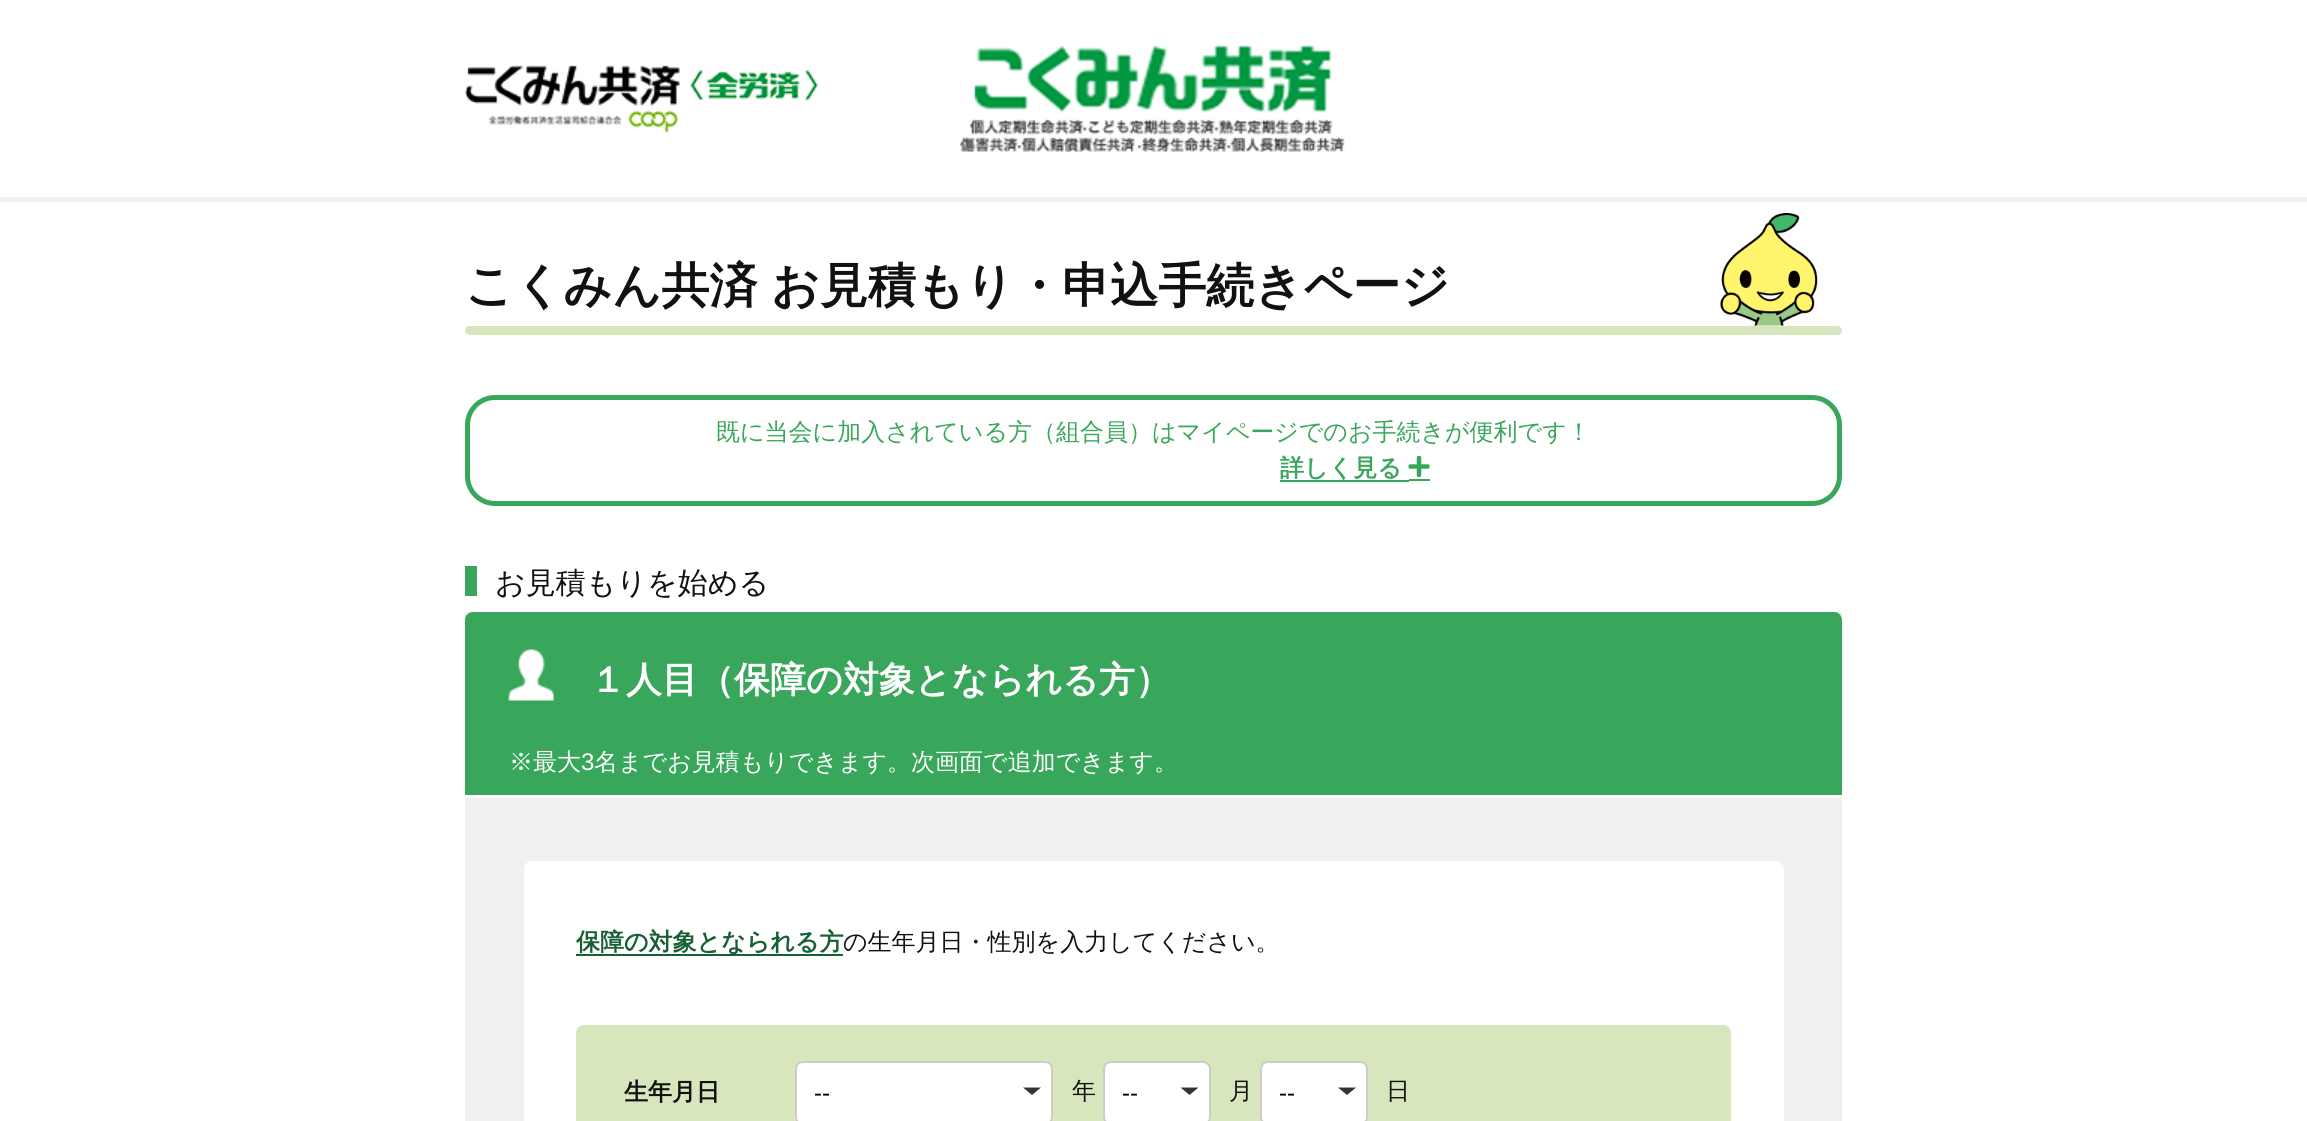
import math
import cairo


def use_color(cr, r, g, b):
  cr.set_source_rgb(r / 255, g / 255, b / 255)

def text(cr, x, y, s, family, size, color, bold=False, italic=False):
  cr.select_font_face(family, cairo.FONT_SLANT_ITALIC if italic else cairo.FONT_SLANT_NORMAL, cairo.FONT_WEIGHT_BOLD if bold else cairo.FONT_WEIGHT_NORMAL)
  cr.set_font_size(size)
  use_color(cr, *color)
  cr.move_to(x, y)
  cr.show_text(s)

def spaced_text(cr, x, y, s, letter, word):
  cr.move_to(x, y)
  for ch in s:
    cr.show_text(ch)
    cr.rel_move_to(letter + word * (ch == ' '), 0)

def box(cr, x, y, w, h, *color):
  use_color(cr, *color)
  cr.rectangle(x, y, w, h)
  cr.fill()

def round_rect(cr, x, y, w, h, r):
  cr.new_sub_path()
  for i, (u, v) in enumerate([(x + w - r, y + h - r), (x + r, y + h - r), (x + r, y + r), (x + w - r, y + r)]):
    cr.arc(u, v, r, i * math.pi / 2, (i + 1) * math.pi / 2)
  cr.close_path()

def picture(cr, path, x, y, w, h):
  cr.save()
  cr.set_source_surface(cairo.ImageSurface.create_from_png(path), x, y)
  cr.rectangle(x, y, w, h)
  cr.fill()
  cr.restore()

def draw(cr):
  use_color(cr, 255, 255, 255)
  cr.paint()
  box(cr, 0, 197, 2307, 5, 240, 240, 240)
  picture(cr, "img_01.png", 465, 65, 353, 68)
  picture(cr, "img_02.png", 960, 45, 385, 107)
  picture(cr, "img_03.png", 1720, 213, 98, 113)
  use_color(cr, 215, 230, 188)
  round_rect(cr, 465, 326, 1377, 9, 4.5)
  cr.fill()
  round_rect(cr, 467.5, 397.5, 1372, 106, 27.5)
  use_color(cr, 57, 167, 91)
  cr.set_line_width(5)
  cr.stroke()
  box(cr, 1280, 480, 129, 2, 57, 167, 91)
  box(cr, 1409, 479, 21, 2, 57, 167, 91)
  picture(cr, "img_04.png", 1408, 456, 22, 21)
  use_color(cr, 240, 240, 240)
  round_rect(cr, 465, 560, 1377, 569, 8)
  cr.fill()
  use_color(cr, 255, 255, 255)
  cr.new_path()
  cr.move_to(473, 560)
  cr.line_to(1834, 560)
  cr.curve_to(1838.5, 560, 1842, 563.5, 1842, 568)
  cr.line_to(1842, 612)
  cr.line_to(465, 612)
  cr.line_to(465, 568)
  cr.curve_to(465, 563.5, 468.5, 560, 473, 560)
  cr.close_path()
  cr.fill()
  box(cr, 465, 566, 12, 30, 57, 167, 91)
  cr.new_path()
  cr.move_to(473, 612)
  cr.line_to(1834, 612)
  cr.curve_to(1838.5, 612, 1842, 615.5, 1842, 620)
  cr.line_to(1842, 744)
  cr.line_to(465, 744)
  cr.line_to(465, 620)
  cr.curve_to(465, 615.5, 468.5, 612, 473, 612)
  cr.close_path()
  cr.fill()
  picture(cr, "img_05.png", 508, 649, 46, 52)
  box(cr, 465, 744, 1377, 51, 57, 167, 91)
  box(cr, 465, 795, 1377, 3, 255, 255, 255)
  round_rect(cr, 524, 861, 1260, 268, 8)
  cr.fill()
  box(cr, 576, 954, 267, 2, 23, 96, 51)
  use_color(cr, 215, 230, 188)
  round_rect(cr, 576, 1025, 1155, 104, 8)
  cr.fill()
  use_color(cr, 255, 255, 255)
  round_rect(cr, 796, 1062, 256, 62, 7)
  cr.fill_preserve()
  use_color(cr, 204, 204, 204)
  cr.set_line_width(2)
  cr.stroke()
  use_color(cr, 51, 51, 51)
  cr.new_path()
  cr.move_to(1023, 1087.5)
  cr.line_to(1041, 1087.5)
  cr.line_to(1032, 1095)
  cr.close_path()
  cr.fill()
  use_color(cr, 255, 255, 255)
  round_rect(cr, 1104, 1062, 106, 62, 7)
  cr.fill_preserve()
  use_color(cr, 204, 204, 204)
  cr.stroke()
  use_color(cr, 51, 51, 51)
  cr.new_path()
  cr.move_to(1180.5, 1087.5)
  cr.line_to(1198.5, 1087.5)
  cr.line_to(1189.5, 1095)
  cr.close_path()
  cr.fill()
  use_color(cr, 255, 255, 255)
  round_rect(cr, 1261, 1062, 106, 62, 7)
  cr.fill_preserve()
  use_color(cr, 204, 204, 204)
  cr.stroke()
  use_color(cr, 51, 51, 51)
  cr.new_path()
  cr.move_to(1338, 1087.5)
  cr.line_to(1356, 1087.5)
  cr.line_to(1347, 1095)
  cr.close_path()
  cr.fill()
  cr.select_font_face("WenQuanYi Zen Hei", cairo.FONT_SLANT_NORMAL, cairo.FONT_WEIGHT_BOLD)
  cr.set_font_size(48)
  use_color(cr, 17, 17, 17)
  spaced_text(cr, 465, 302, "こくみん共済 お見積もり・申込手続きページ", 0, -1)
  text(cr, 716, 440, "既に当会に加入されている方（組合員）はマイページでのお手続きが便利です！", "WenQuanYi Zen Hei Medium", 24, (57, 167, 91))
  text(cr, 1280, 476, "詳しく見る", "WenQuanYi Zen Hei", 24, (57, 167, 91), bold=True)
  text(cr, 495, 593, "お見積もりを始める", "WenQuanYi Zen Hei Medium", 30, (17, 17, 17))
  text(cr, 590, 692, "１人目（保障の対象となられる方）", "WenQuanYi Zen Hei", 36, (255, 255, 255), bold=True)
  text(cr, 509, 770, "※最大", "WenQuanYi Zen Hei Medium", 24, (255, 255, 255))
  text(cr, 581, 770, "3", "Liberation Sans", 24, (255, 255, 255))
  text(cr, 594, 770, "名までお見積もりできます。次画面で追加できます。", "WenQuanYi Zen Hei Medium", 24, (255, 255, 255))
  text(cr, 576, 950, "保障の対象となられる方", "WenQuanYi Zen Hei", 24, (23, 96, 51), bold=True)
  text(cr, 843, 950, "の生年月日・性別を入力してください。", "WenQuanYi Zen Hei Medium", 24, (17, 17, 17))
  text(cr, 624, 1100, "生年月日", "WenQuanYi Zen Hei", 24, (17, 17, 17), bold=True)
  text(cr, 814, 1101, "--", "Liberation Sans", 24, (0, 0, 0))
  text(cr, 1072, 1099, "年", "WenQuanYi Zen Hei Medium", 24, (17, 17, 17))
  text(cr, 1122, 1101, "--", "Liberation Sans", 24, (0, 0, 0))
  text(cr, 1229, 1099, "月", "WenQuanYi Zen Hei Medium", 24, (17, 17, 17))
  text(cr, 1279, 1101, "--", "Liberation Sans", 24, (0, 0, 0))
  text(cr, 1386, 1099, "日", "WenQuanYi Zen Hei Medium", 24, (17, 17, 17))


surface = cairo.ImageSurface(cairo.FORMAT_RGB24, 2307, 1121)
cr = cairo.Context(surface)
options = cairo.FontOptions()
options.set_hint_metrics(cairo.HINT_METRICS_OFF)
options.set_hint_style(cairo.HINT_STYLE_NONE)
cr.set_font_options(options)
cr.set_miter_limit(4)
draw(cr)
surface.write_to_png("out.png")
